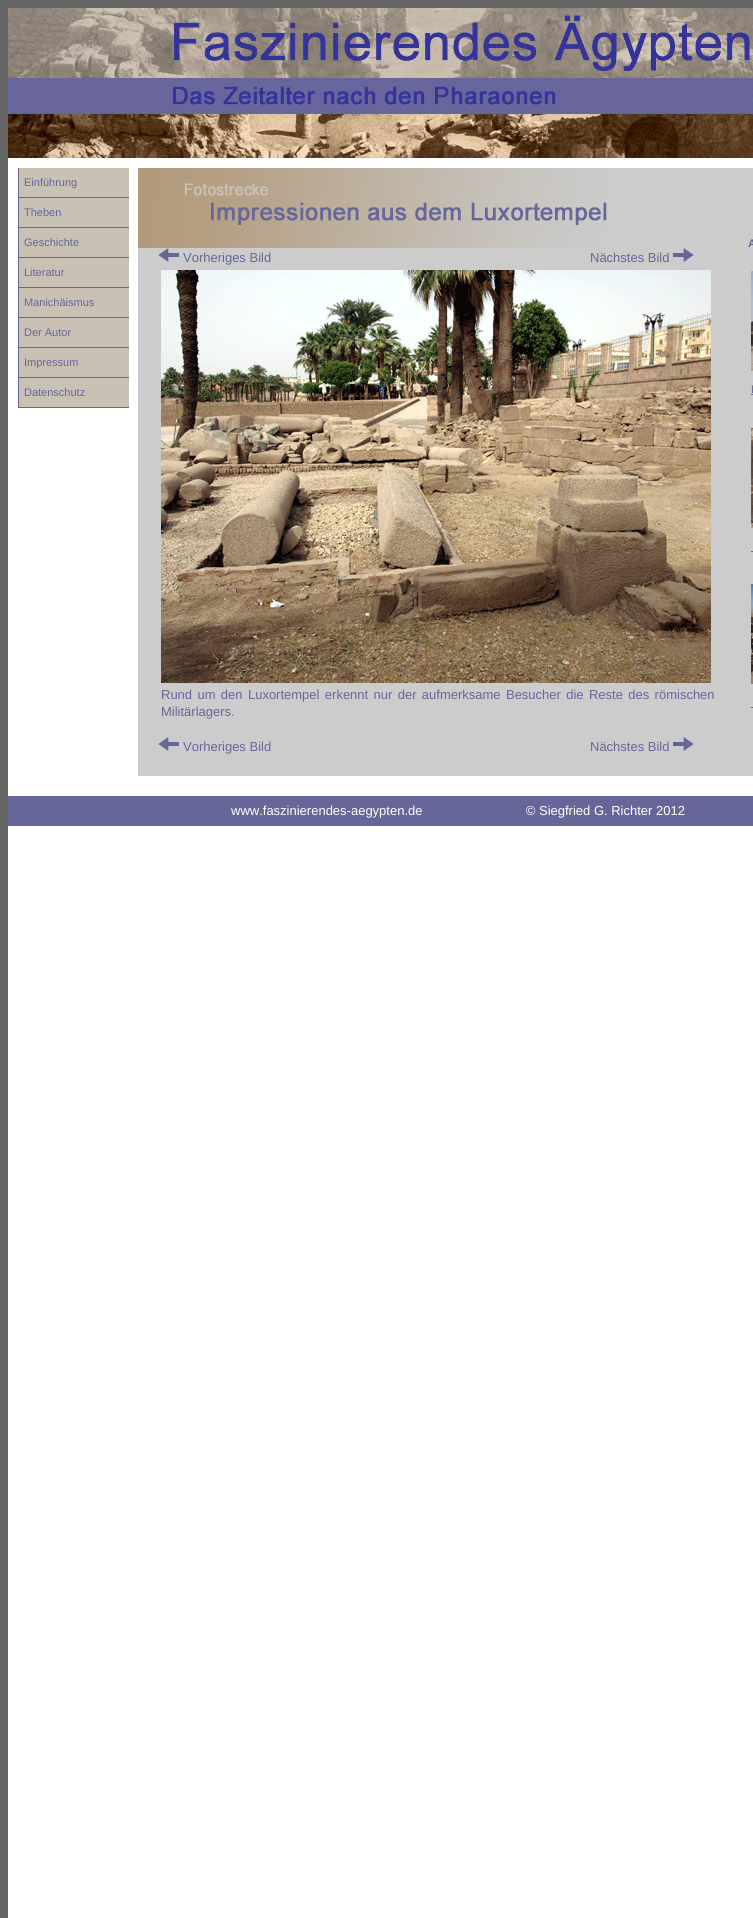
import math
import cairo


def use_color(cr, r, g, b):
  cr.set_source_rgb(r / 255, g / 255, b / 255)

def text(cr, x, y, s, family, size, color, bold=False, italic=False):
  cr.select_font_face(family, cairo.FONT_SLANT_ITALIC if italic else cairo.FONT_SLANT_NORMAL, cairo.FONT_WEIGHT_BOLD if bold else cairo.FONT_WEIGHT_NORMAL)
  cr.set_font_size(size)
  use_color(cr, *color)
  cr.move_to(x, y)
  cr.show_text(s)

def spaced_text(cr, x, y, s, letter, word):
  cr.move_to(x, y)
  for ch in s:
    cr.show_text(ch)
    cr.rel_move_to(letter + word * (ch == ' '), 0)

def box(cr, x, y, w, h, *color):
  use_color(cr, *color)
  cr.rectangle(x, y, w, h)
  cr.fill()

def picture(cr, path, x, y, w, h):
  cr.save()
  cr.set_source_surface(cairo.ImageSurface.create_from_png(path), x, y)
  cr.rectangle(x, y, w, h)
  cr.fill()
  cr.restore()

def draw(cr):
  use_color(cr, 102, 102, 102)
  cr.paint()
  box(cr, 8, 158, 745, 1760, 255, 255, 255)
  picture(cr, "img_01.png", 8, 8, 745, 150)
  box(cr, 19, 168, 110, 29, 200, 193, 180)
  box(cr, 18, 197, 111, 1, 102, 102, 153)
  box(cr, 18, 168, 1, 30, 102, 102, 153)
  box(cr, 19, 198, 110, 29, 200, 193, 180)
  box(cr, 18, 227, 111, 1, 102, 102, 153)
  box(cr, 18, 198, 1, 30, 102, 102, 153)
  box(cr, 19, 228, 110, 29, 200, 193, 180)
  box(cr, 18, 257, 111, 1, 102, 102, 153)
  box(cr, 18, 228, 1, 30, 102, 102, 153)
  box(cr, 19, 258, 110, 29, 200, 193, 180)
  box(cr, 18, 287, 111, 1, 102, 102, 153)
  box(cr, 18, 258, 1, 30, 102, 102, 153)
  box(cr, 19, 288, 110, 29, 200, 193, 180)
  box(cr, 18, 317, 111, 1, 102, 102, 153)
  box(cr, 18, 288, 1, 30, 102, 102, 153)
  box(cr, 19, 318, 110, 29, 200, 193, 180)
  box(cr, 18, 347, 111, 1, 102, 102, 153)
  box(cr, 18, 318, 1, 30, 102, 102, 153)
  box(cr, 19, 348, 110, 29, 200, 193, 180)
  box(cr, 18, 377, 111, 1, 102, 102, 153)
  box(cr, 18, 348, 1, 30, 102, 102, 153)
  box(cr, 19, 378, 110, 29, 200, 193, 180)
  box(cr, 18, 407, 111, 1, 102, 102, 153)
  box(cr, 18, 378, 1, 30, 102, 102, 153)
  box(cr, 138, 168, 615, 608, 204, 204, 204)
  picture(cr, "img_02.png", 138, 168, 469, 80)
  picture(cr, "img_03.png", 158, 248, 21, 14)
  picture(cr, "img_04.png", 673, 248, 21, 14)
  picture(cr, "img_05.png", 751, 271, 2, 100)
  box(cr, 751, 394, 2, 1, 102, 102, 153)
  picture(cr, "img_06.png", 751, 428, 2, 100)
  box(cr, 751, 551, 2, 1, 102, 102, 153)
  picture(cr, "img_07.png", 751, 584, 2, 100)
  box(cr, 751, 707, 2, 1, 102, 102, 153)
  picture(cr, "img_08.png", 161, 270, 550, 413)
  picture(cr, "img_03.png", 158, 737, 21, 14)
  picture(cr, "img_04.png", 673, 737, 21, 14)
  box(cr, 8, 796, 745, 30, 102, 102, 153)
  text(cr, 24, 186, "Einführung", "Liberation Sans", 11, (102, 102, 153))
  text(cr, 24, 216, "Theben", "Liberation Sans", 11, (102, 102, 153))
  text(cr, 24, 246, "Geschichte", "Liberation Sans", 11, (102, 102, 153))
  text(cr, 24, 276, "Literatur", "Liberation Sans", 11, (102, 102, 153))
  text(cr, 24, 306, "Manichäismus", "Liberation Sans", 11, (102, 102, 153))
  text(cr, 24, 336, "Der Autor", "Liberation Sans", 11, (102, 102, 153))
  text(cr, 24, 366, "Impressum", "Liberation Sans", 11, (102, 102, 153))
  text(cr, 24, 396, "Datenschutz", "Liberation Sans", 11, (102, 102, 153))
  text(cr, 183, 262, "Vorheriges Bild", "Liberation Sans", 13, (102, 102, 153))
  text(cr, 590, 262, "Nächstes Bild", "Liberation Sans", 13, (102, 102, 153))
  text(cr, 748, 247, "A", "Liberation Sans", 11, (102, 102, 153), bold=True)
  text(cr, 751, 393, "L", "Liberation Sans", 11, (102, 102, 153))
  cr.set_font_size(13)
  spaced_text(cr, 161, 699, "Rund um den Luxortempel erkennt nur der aufmerksame Besucher die Reste des römischen", 0, 1.75)
  text(cr, 161, 716, "Militärlagers.", "Liberation Sans", 13, (102, 102, 153))
  text(cr, 183, 751, "Vorheriges Bild", "Liberation Sans", 13, (102, 102, 153))
  text(cr, 590, 751, "Nächstes Bild", "Liberation Sans", 13, (102, 102, 153))
  text(cr, 231, 815, "www.faszinierendes-aegypten.de             © Siegfried G. Richter 2012", "Liberation Sans", 13, (255, 255, 255))


surface = cairo.ImageSurface(cairo.FORMAT_RGB24, 753, 1918)
cr = cairo.Context(surface)
options = cairo.FontOptions()
options.set_hint_metrics(cairo.HINT_METRICS_OFF)
options.set_hint_style(cairo.HINT_STYLE_NONE)
cr.set_font_options(options)
cr.set_miter_limit(4)
draw(cr)
surface.write_to_png("out.png")
